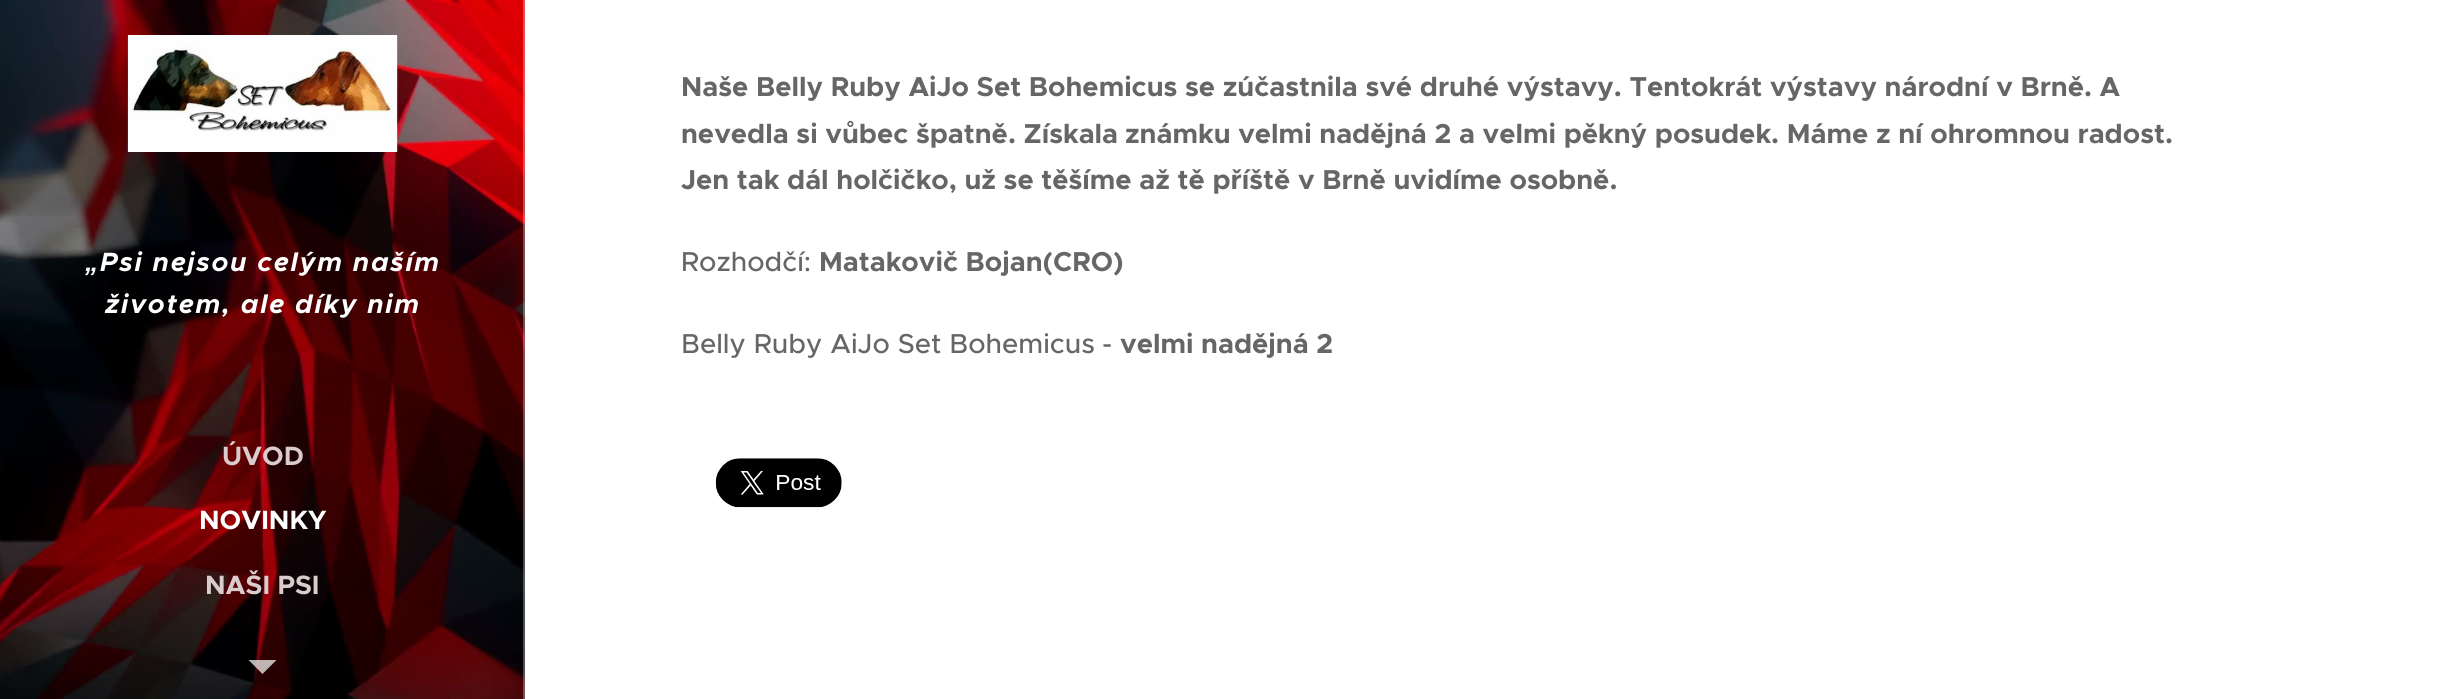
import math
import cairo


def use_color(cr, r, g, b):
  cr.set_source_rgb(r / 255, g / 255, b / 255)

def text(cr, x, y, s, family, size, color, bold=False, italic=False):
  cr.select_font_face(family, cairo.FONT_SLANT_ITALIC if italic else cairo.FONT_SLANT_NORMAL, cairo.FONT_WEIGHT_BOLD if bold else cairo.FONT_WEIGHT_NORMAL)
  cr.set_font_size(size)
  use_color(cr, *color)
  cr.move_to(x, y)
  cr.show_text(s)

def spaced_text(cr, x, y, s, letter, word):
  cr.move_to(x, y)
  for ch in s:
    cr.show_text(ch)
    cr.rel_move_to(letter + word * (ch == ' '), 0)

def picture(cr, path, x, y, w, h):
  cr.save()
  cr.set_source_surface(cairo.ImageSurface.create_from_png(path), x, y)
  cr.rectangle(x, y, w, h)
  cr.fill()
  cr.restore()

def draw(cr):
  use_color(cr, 255, 255, 255)
  cr.paint()
  picture(cr, "img_01.png", 715, 458, 127, 50)
  picture(cr, "img_02.png", 0, 0, 525, 699)
  picture(cr, "img_03.png", 127, 35, 271, 117)
  cr.set_source_rgba(1, 1, 1, 0.7)
  cr.new_path()
  cr.move_to(248.5, 660)
  cr.line_to(276.5, 660)
  cr.line_to(262.5, 674)
  cr.close_path()
  cr.fill()
  cr.set_source_rgba(1, 1, 1, 0.3)
  cr.rectangle(523, 0, 2, 699)
  cr.fill()
  text(cr, 681, 96, "Naše Belly Ruby AiJo Set Bohemicus se zúčastnila své druhé výstavy. Tentokrát výstavy národní v Brně. A", "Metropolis", 27.47, (102, 102, 102), bold=True)
  text(cr, 681, 143, "nevedla si vůbec špatně. Získala", "Metropolis", 27.47, (102, 102, 102), bold=True)
  text(cr, 1125, 143, "známku velmi nadějná 2 a velmi pěkný posudek. Máme z ní ohromnou radost.", "Metropolis", 27.47, (102, 102, 102), bold=True)
  text(cr, 681, 189, "Jen tak dál holčičko, už se těšíme až tě příště v Brně uvidíme osobně.", "Metropolis", 27.47, (102, 102, 102), bold=True)
  text(cr, 681, 271, "Rozhodčí:", "Metropolis Medium", 27.47, (102, 102, 102))
  text(cr, 819, 271, "Matakovič Bojan(CRO)", "Metropolis", 27.47, (102, 102, 102), bold=True)
  text(cr, 681, 353, "Belly Ruby AiJo Set Bohemicus", "Metropolis Medium", 27.47, (102, 102, 102))
  text(cr, 1102, 353, "-", "Metropolis Medium", 27.47, (102, 102, 102))
  text(cr, 1120, 353, "velmi nadějná 2", "Metropolis", 27.47, (102, 102, 102), bold=True)
  cr.select_font_face("Liberation Sans", cairo.FONT_SLANT_ITALIC, cairo.FONT_WEIGHT_BOLD)
  cr.set_font_size(26.6)
  use_color(cr, 255, 255, 255)
  spaced_text(cr, 85, 271, "„", 1.75, 0)
  cr.select_font_face("Metropolis", cairo.FONT_SLANT_ITALIC, cairo.FONT_WEIGHT_BOLD)
  spaced_text(cr, 100, 271, "Psi nejsou celým naším", 1.75, 0)
  spaced_text(cr, 105, 313, "životem, ale díky nim", 1.75, 0)
  text(cr, 222, 465, "ÚVOD", "Metropolis", 26.6, (218, 204, 204), bold=True)
  text(cr, 199, 529, "NOVINKY", "Metropolis", 26.6, (255, 255, 255), bold=True)
  text(cr, 205, 594, "NAŠI PSI", "Metropolis", 26.6, (218, 204, 204), bold=True)


surface = cairo.ImageSurface(cairo.FORMAT_RGB24, 2445, 699)
cr = cairo.Context(surface)
options = cairo.FontOptions()
options.set_hint_metrics(cairo.HINT_METRICS_OFF)
options.set_hint_style(cairo.HINT_STYLE_NONE)
cr.set_font_options(options)
cr.set_miter_limit(4)
draw(cr)
surface.write_to_png("out.png")
